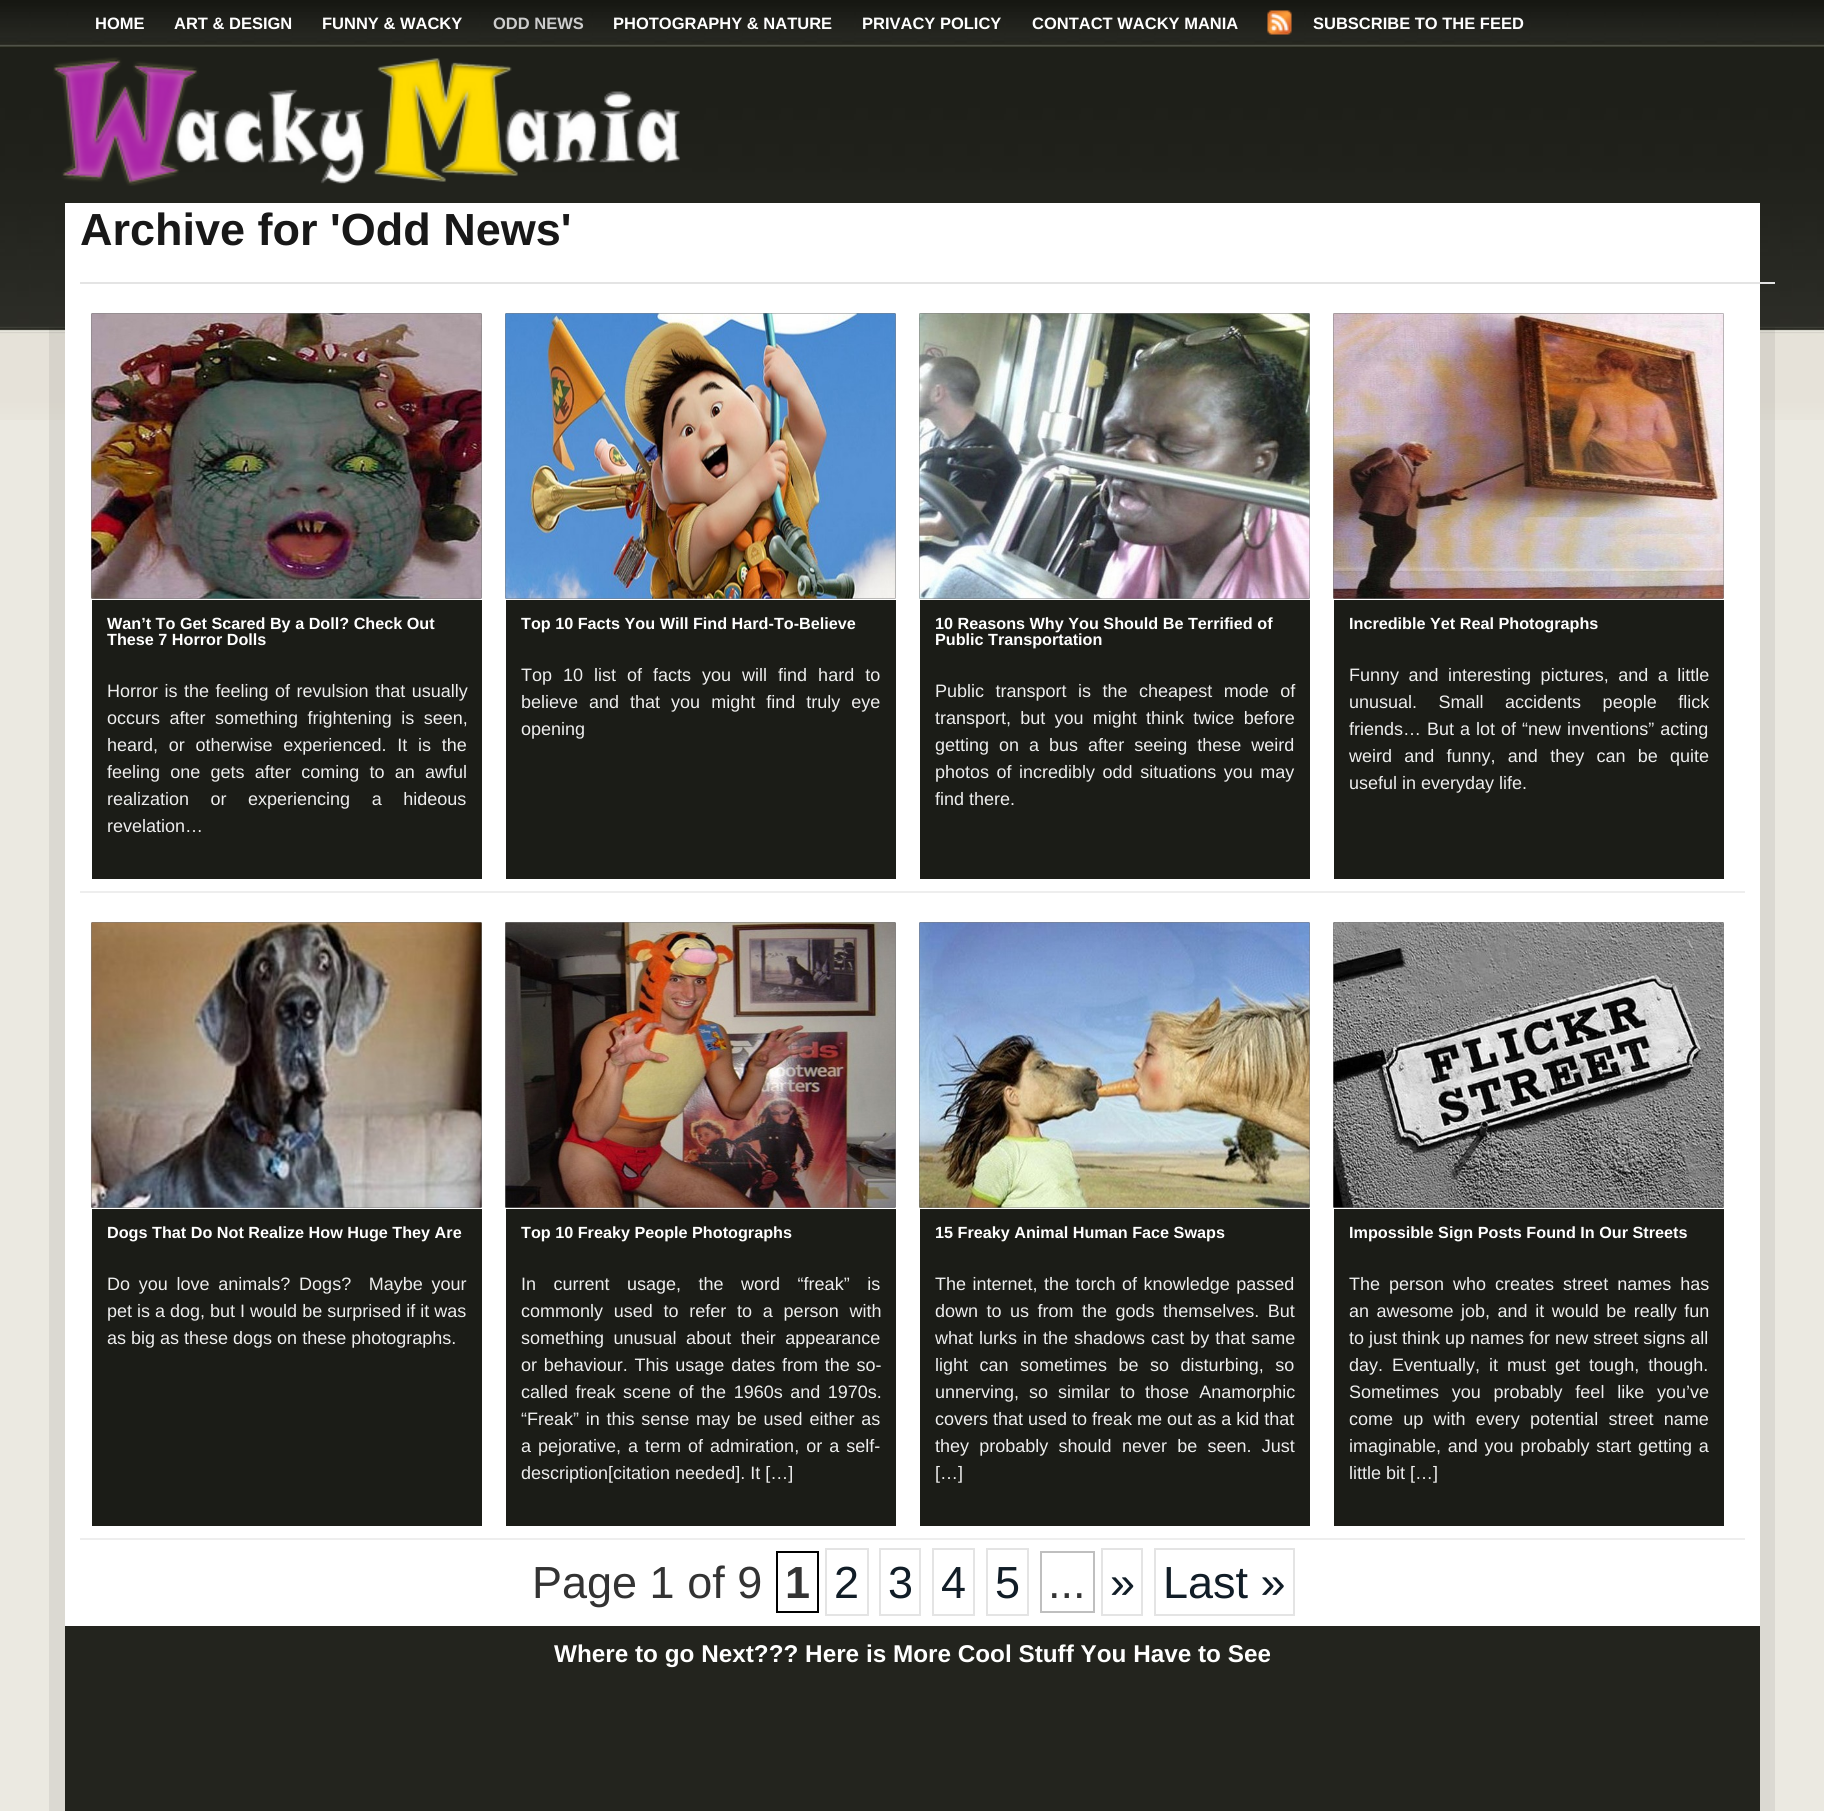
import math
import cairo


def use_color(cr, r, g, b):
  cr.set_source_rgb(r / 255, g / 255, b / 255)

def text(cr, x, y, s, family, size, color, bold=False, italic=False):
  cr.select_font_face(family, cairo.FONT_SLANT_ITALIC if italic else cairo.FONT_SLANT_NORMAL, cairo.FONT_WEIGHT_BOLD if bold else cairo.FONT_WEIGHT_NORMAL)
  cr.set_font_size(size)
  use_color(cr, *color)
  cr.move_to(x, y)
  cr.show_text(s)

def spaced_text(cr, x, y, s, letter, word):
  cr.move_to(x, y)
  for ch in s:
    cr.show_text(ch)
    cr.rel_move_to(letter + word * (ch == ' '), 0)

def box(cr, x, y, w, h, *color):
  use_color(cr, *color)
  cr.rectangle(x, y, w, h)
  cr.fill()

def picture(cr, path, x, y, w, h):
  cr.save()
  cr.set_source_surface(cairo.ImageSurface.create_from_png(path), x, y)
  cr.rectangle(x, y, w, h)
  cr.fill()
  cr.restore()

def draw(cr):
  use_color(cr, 235, 233, 225)
  cr.paint()
  picture(cr, "img_01.png", 0, 0, 1824, 420)
  picture(cr, "img_02.png", 1267, 10, 25, 25)
  picture(cr, "img_03.png", 53, 57, 627, 129)
  cr.set_source_rgba(0, 0, 0, 0.07)
  cr.rectangle(49, 327, 1726, 1484)
  cr.fill()
  box(cr, 65, 203, 1695, 1423, 255, 255, 255)
  box(cr, 80, 282, 1695, 2, 228, 228, 228)
  picture(cr, "img_04.png", 91, 313, 391, 286)
  picture(cr, "img_05.png", 91, 313, 391, 286)
  box(cr, 92, 600, 390, 279, 27, 28, 23)
  picture(cr, "img_06.png", 505, 313, 391, 286)
  picture(cr, "img_07.png", 505, 313, 391, 286)
  box(cr, 506, 600, 390, 279, 27, 28, 23)
  picture(cr, "img_04.png", 919, 313, 391, 286)
  picture(cr, "img_08.png", 919, 313, 391, 286)
  box(cr, 920, 600, 390, 279, 27, 28, 23)
  picture(cr, "img_09.png", 1333, 313, 391, 286)
  picture(cr, "img_10.png", 1333, 313, 391, 286)
  box(cr, 1334, 600, 390, 279, 27, 28, 23)
  box(cr, 80, 891, 1665, 2, 238, 238, 238)
  picture(cr, "img_04.png", 91, 922, 391, 286)
  picture(cr, "img_11.png", 91, 922, 391, 286)
  box(cr, 92, 1209, 390, 317, 27, 28, 23)
  picture(cr, "img_06.png", 505, 922, 391, 286)
  picture(cr, "img_12.png", 505, 922, 391, 286)
  box(cr, 506, 1209, 390, 317, 27, 28, 23)
  picture(cr, "img_04.png", 919, 922, 391, 286)
  picture(cr, "img_13.png", 919, 922, 391, 286)
  box(cr, 920, 1209, 390, 317, 27, 28, 23)
  picture(cr, "img_09.png", 1333, 922, 391, 286)
  picture(cr, "img_14.png", 1333, 922, 391, 286)
  box(cr, 1334, 1209, 390, 317, 27, 28, 23)
  box(cr, 80, 1538, 1665, 2, 238, 238, 238)
  cr.rectangle(777, 1552, 41, 60)
  use_color(cr, 0, 0, 0)
  cr.stroke()
  cr.rectangle(826, 1549, 42, 66)
  use_color(cr, 228, 228, 228)
  cr.stroke()
  cr.rectangle(880, 1549, 40, 66)
  cr.stroke()
  cr.rectangle(933, 1549, 41, 66)
  cr.stroke()
  cr.rectangle(987, 1549, 41, 66)
  cr.stroke()
  cr.rectangle(1102, 1549, 40, 66)
  cr.stroke()
  cr.rectangle(1155, 1549, 139, 66)
  cr.stroke()
  cr.rectangle(1041, 1552, 53, 60)
  use_color(cr, 191, 191, 191)
  cr.stroke()
  box(cr, 65, 1626, 1695, 185, 35, 36, 30)
  text(cr, 95, 29, "HOME", "Liberation Sans", 16.5, (255, 255, 255), bold=True)
  text(cr, 174, 29, "ART & DESIGN", "Liberation Sans", 16.5, (255, 255, 255), bold=True)
  text(cr, 322, 29, "FUNNY & WACKY", "Liberation Sans", 16.5, (255, 255, 255), bold=True)
  text(cr, 493, 29, "ODD NEWS", "Liberation Sans", 16.5, (204, 204, 204), bold=True)
  text(cr, 613, 29, "PHOTOGRAPHY & NATURE", "Liberation Sans", 16.5, (255, 255, 255), bold=True)
  text(cr, 862, 29, "PRIVACY POLICY", "Liberation Sans", 16.5, (255, 255, 255), bold=True)
  text(cr, 1032, 29, "CONTACT WACKY MANIA", "Liberation Sans", 16.5, (255, 255, 255), bold=True)
  text(cr, 1313, 29, "SUBSCRIBE TO THE FEED", "Liberation Sans", 16.5, (255, 255, 255), bold=True)
  text(cr, 80, 245, "Archive for 'Odd News'", "Liberation Sans", 45, (24, 24, 24), bold=True)
  text(cr, 107, 629, "Wan’t To Get Scared By a Doll? Check Out", "Liberation Sans", 16.2, (255, 255, 255), bold=True)
  text(cr, 107, 645, "These 7 Horror Dolls", "Liberation Sans", 16.2, (255, 255, 255), bold=True)
  cr.select_font_face("Liberation Sans")
  cr.set_font_size(18)
  use_color(cr, 238, 238, 238)
  spaced_text(cr, 107, 697, "Horror is the feeling of revulsion that usually", 0, 1.5)
  spaced_text(cr, 107, 724, "occurs after something frightening is seen,", 0, 4.5)
  spaced_text(cr, 107, 751, "heard, or otherwise experienced. It is the", 0, 5.75)
  spaced_text(cr, 107, 778, "feeling one gets after coming to an awful", 0, 5.25)
  spaced_text(cr, 107, 805, "realization or experiencing a hideous", 0, 16.5)
  text(cr, 107, 832, "revelation…", "Liberation Sans", 18, (238, 238, 238))
  text(cr, 521, 629, "Top 10 Facts You Will Find Hard-To-Believe", "Liberation Sans", 16.2, (255, 255, 255), bold=True)
  cr.select_font_face("Liberation Sans")
  cr.set_font_size(18)
  use_color(cr, 238, 238, 238)
  spaced_text(cr, 521, 681, "Top 10 list of facts you will find hard to", 0, 6)
  spaced_text(cr, 521, 708, "believe and that you might find truly eye", 0, 6)
  text(cr, 521, 735, "opening", "Liberation Sans", 18, (238, 238, 238))
  text(cr, 935, 629, "10 Reasons Why You Should Be Terrified of", "Liberation Sans", 16.2, (255, 255, 255), bold=True)
  text(cr, 935, 645, "Public Transportation", "Liberation Sans", 16.2, (255, 255, 255), bold=True)
  cr.select_font_face("Liberation Sans")
  cr.set_font_size(18)
  use_color(cr, 238, 238, 238)
  spaced_text(cr, 935, 697, "Public transport is the cheapest mode of", 0, 6.5)
  spaced_text(cr, 935, 724, "transport, but you might think twice before", 0, 4.25)
  spaced_text(cr, 935, 751, "getting on a bus after seeing these weird", 0, 5)
  spaced_text(cr, 935, 778, "photos of incredibly odd situations you may", 0, 2.5)
  text(cr, 935, 805, "find there.", "Liberation Sans", 18, (238, 238, 238))
  text(cr, 1349, 629, "Incredible Yet Real Photographs", "Liberation Sans", 16.2, (255, 255, 255), bold=True)
  cr.select_font_face("Liberation Sans")
  cr.set_font_size(18)
  use_color(cr, 238, 238, 238)
  spaced_text(cr, 1349, 681, "Funny and interesting pictures, and a little", 0, 4.5)
  spaced_text(cr, 1349, 708, "unusual. Small accidents people flick", 0, 16.5)
  spaced_text(cr, 1349, 735, "friends… But a lot of “new inventions” acting", 0, 1)
  spaced_text(cr, 1349, 762, "weird and funny, and they can be quite", 0, 7.25)
  text(cr, 1349, 789, "useful in everyday life.", "Liberation Sans", 18, (238, 238, 238))
  text(cr, 107, 1238, "Dogs That Do Not Realize How Huge They Are", "Liberation Sans", 16.2, (255, 255, 255), bold=True)
  cr.select_font_face("Liberation Sans")
  cr.set_font_size(18)
  use_color(cr, 238, 238, 238)
  spaced_text(cr, 107, 1290, "Do you love animals? Dogs?  Maybe your", 0, 3.75)
  text(cr, 107, 1317, "pet is a dog, but I would be surprised if it was", "Liberation Sans", 18, (238, 238, 238))
  text(cr, 107, 1344, "as big as these dogs on these photographs.", "Liberation Sans", 18, (238, 238, 238))
  text(cr, 521, 1238, "Top 10 Freaky People Photographs", "Liberation Sans", 16.2, (255, 255, 255), bold=True)
  cr.select_font_face("Liberation Sans")
  cr.set_font_size(18)
  use_color(cr, 238, 238, 238)
  spaced_text(cr, 521, 1290, "In current usage, the word “freak” is", 0, 12.5)
  spaced_text(cr, 521, 1317, "commonly used to refer to a person with", 0, 5.75)
  spaced_text(cr, 521, 1344, "something unusual about their appearance", 0, 4.5)
  spaced_text(cr, 521, 1371, "or behaviour. This usage dates from the so-", 0, 1.75)
  spaced_text(cr, 521, 1398, "called freak scene of the 1960s and 1970s.", 0, 2.5)
  spaced_text(cr, 521, 1425, "“Freak” in this sense may be used either as", 0, 1.75)
  spaced_text(cr, 521, 1452, "a pejorative, a term of admiration, or a self-", 0, 2)
  text(cr, 521, 1479, "description[citation needed]. It […]", "Liberation Sans", 18, (238, 238, 238))
  text(cr, 935, 1238, "15 Freaky Animal Human Face Swaps", "Liberation Sans", 16.2, (255, 255, 255), bold=True)
  cr.select_font_face("Liberation Sans")
  cr.set_font_size(18)
  use_color(cr, 238, 238, 238)
  spaced_text(cr, 935, 1290, "The internet, the torch of knowledge passed", 0, 1.5)
  spaced_text(cr, 935, 1317, "down to us from the gods themselves. But", 0, 3.5)
  spaced_text(cr, 935, 1344, "what lurks in the shadows cast by that same", 0, 1)
  spaced_text(cr, 935, 1371, "light can sometimes be so disturbing, so", 0, 6.5)
  spaced_text(cr, 935, 1398, "unnerving, so similar to those Anamorphic", 0, 5)
  text(cr, 935, 1425, "covers that used to freak me out as a kid that", "Liberation Sans", 18, (238, 238, 238))
  spaced_text(cr, 935, 1452, "they probably should never be seen. Just", 0, 5.25)
  text(cr, 935, 1479, "[…]", "Liberation Sans", 18, (238, 238, 238))
  text(cr, 1349, 1238, "Impossible Sign Posts Found In Our Streets", "Liberation Sans", 16.2, (255, 255, 255), bold=True)
  cr.select_font_face("Liberation Sans")
  cr.set_font_size(18)
  use_color(cr, 238, 238, 238)
  spaced_text(cr, 1349, 1290, "The person who creates street names has", 0, 4)
  spaced_text(cr, 1349, 1317, "an awesome job, and it would be really fun", 0, 2.5)
  text(cr, 1349, 1344, "to just think up names for new street signs all", "Liberation Sans", 18, (238, 238, 238))
  spaced_text(cr, 1349, 1371, "day. Eventually, it must get tough, though.", 0, 4)
  spaced_text(cr, 1349, 1398, "Sometimes you probably feel like you’ve", 0, 7.75)
  spaced_text(cr, 1349, 1425, "come up with every potential street name", 0, 5.25)
  spaced_text(cr, 1349, 1452, "imaginable, and you probably start getting a", 0, 1.75)
  text(cr, 1349, 1479, "little bit […]", "Liberation Sans", 18, (238, 238, 238))
  text(cr, 532, 1598, "Page 1 of 9", "Liberation Sans", 45, (51, 51, 51))
  text(cr, 785, 1598, "1", "Liberation Sans", 45, (51, 51, 51), bold=True)
  text(cr, 834, 1598, "2", "Liberation Sans", 45, (17, 29, 39))
  text(cr, 888, 1598, "3", "Liberation Sans", 45, (17, 29, 39))
  text(cr, 941, 1598, "4", "Liberation Sans", 45, (17, 29, 39))
  text(cr, 995, 1598, "5", "Liberation Sans", 45, (17, 29, 39))
  text(cr, 1110, 1598, "»", "Liberation Sans", 45, (17, 29, 39))
  text(cr, 1163, 1598, "Last »", "Liberation Sans", 45, (17, 29, 39))
  text(cr, 1048, 1598, "...", "Liberation Sans", 45, (51, 51, 51))
  text(cr, 554, 1662, "Where to go Next??? Here is More Cool Stuff You Have to See", "Liberation Sans", 24.3, (255, 255, 255), bold=True)


surface = cairo.ImageSurface(cairo.FORMAT_RGB24, 1824, 1811)
cr = cairo.Context(surface)
options = cairo.FontOptions()
options.set_hint_metrics(cairo.HINT_METRICS_OFF)
options.set_hint_style(cairo.HINT_STYLE_NONE)
cr.set_font_options(options)
cr.set_miter_limit(4)
draw(cr)
surface.write_to_png("out.png")
